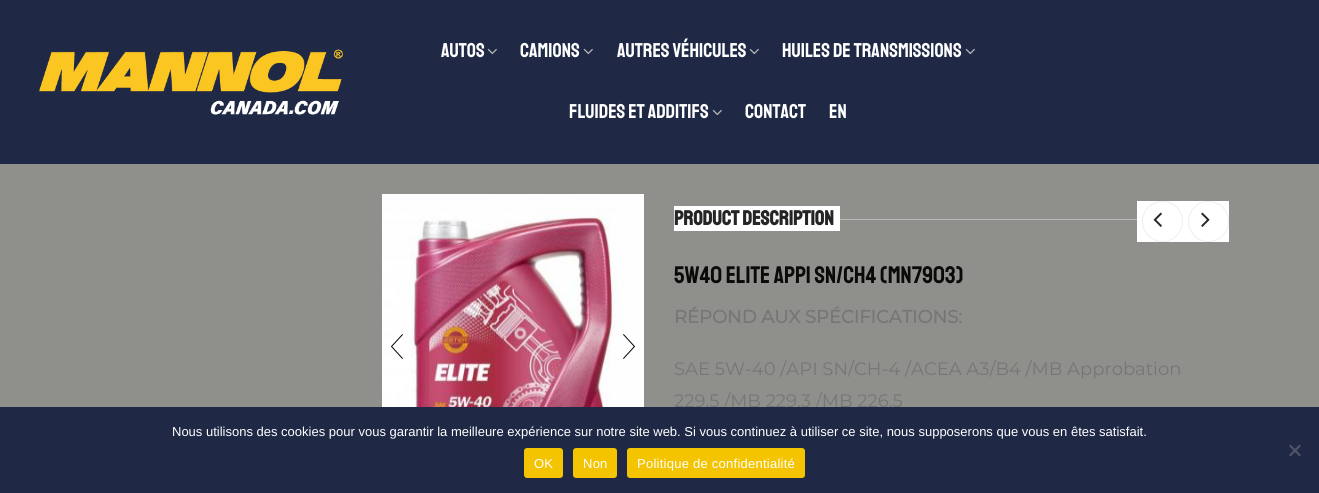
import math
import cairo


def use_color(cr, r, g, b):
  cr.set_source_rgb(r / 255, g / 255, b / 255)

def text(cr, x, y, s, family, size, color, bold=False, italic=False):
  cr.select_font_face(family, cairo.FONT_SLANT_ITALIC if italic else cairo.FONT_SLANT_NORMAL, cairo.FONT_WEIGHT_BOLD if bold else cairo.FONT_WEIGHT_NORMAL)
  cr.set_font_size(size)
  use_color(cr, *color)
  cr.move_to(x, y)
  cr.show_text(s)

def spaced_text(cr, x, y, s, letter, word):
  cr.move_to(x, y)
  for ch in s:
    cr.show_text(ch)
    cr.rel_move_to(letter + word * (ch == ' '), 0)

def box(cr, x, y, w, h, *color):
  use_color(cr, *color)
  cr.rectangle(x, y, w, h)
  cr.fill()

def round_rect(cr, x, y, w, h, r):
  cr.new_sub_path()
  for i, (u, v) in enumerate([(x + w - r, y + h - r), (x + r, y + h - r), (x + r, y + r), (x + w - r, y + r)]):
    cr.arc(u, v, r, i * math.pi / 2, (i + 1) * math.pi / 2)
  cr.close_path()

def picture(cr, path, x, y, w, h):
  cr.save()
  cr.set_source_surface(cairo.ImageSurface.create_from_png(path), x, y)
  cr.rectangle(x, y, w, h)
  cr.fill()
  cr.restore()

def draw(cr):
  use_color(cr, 143, 143, 140)
  cr.paint()
  box(cr, 0, 0, 1319, 164, 31, 41, 70)
  picture(cr, "img_01.png", 39, 49, 304, 66)
  picture(cr, "img_02.png", 487, 48, 10, 7)
  picture(cr, "img_02.png", 583, 48, 10, 7)
  picture(cr, "img_02.png", 749, 48, 10, 7)
  picture(cr, "img_02.png", 965, 48, 10, 7)
  picture(cr, "img_02.png", 712, 109, 10, 7)
  picture(cr, "img_03.png", 382, 194, 262, 213)
  picture(cr, "img_04.png", 391, 334, 12, 25)
  picture(cr, "img_05.png", 623, 334, 12, 25)
  box(cr, 674, 206, 166, 25, 255, 255, 255)
  box(cr, 840, 219, 297, 1, 187, 187, 187)
  box(cr, 1137, 201, 92, 41, 255, 255, 255)
  cr.arc(1162.5, 221.5, 20, 0, 2 * math.pi)
  use_color(cr, 238, 238, 238)
  cr.set_line_width(1)
  cr.stroke()
  picture(cr, "img_06.png", 1153, 212, 9, 15)
  cr.arc(1208.5, 221.5, 20, 0, 2 * math.pi)
  cr.stroke()
  picture(cr, "img_07.png", 1201, 212, 9, 15)
  text(cr, 441, 57, "AUTOS", "Staatliches", 20, (255, 255, 255))
  text(cr, 520, 57, "CAMIONS", "Staatliches", 20, (255, 255, 255))
  text(cr, 617, 57, "AUTRES VÉHICULES", "Staatliches", 20, (255, 255, 255))
  text(cr, 782, 57, "HUILES DE TRANSMISSIONS", "Staatliches", 20, (255, 255, 255))
  text(cr, 569, 118, "FLUIDES ET ADDITIFS", "Staatliches", 20, (255, 255, 255))
  text(cr, 745, 118, "CONTACT", "Staatliches", 20, (255, 255, 255))
  text(cr, 829, 118, "EN", "Staatliches", 20, (255, 255, 255))
  text(cr, 674, 225, "PRODUCT DESCRIPTION", "Staatliches", 20.5, (37, 37, 37), bold=True)
  text(cr, 674, 283, "5W40 ELITE APPI SN/CH4 (MN7903)", "Staatliches", 24, (10, 10, 10))
  text(cr, 674, 323, "RÉPOND AUX SPÉCIFICATIONS:", "Montserrat", 18, (118, 118, 118), bold=True)
  text(cr, 674, 375, "SAE 5W-40 /API SN/CH-4 /ACEA A3/B4 /MB Approbation", "Montserrat Thin", 18, (118, 118, 118))
  text(cr, 674, 407, "229.5 /MB 229.3 /MB 226.5", "Montserrat Thin", 18, (118, 118, 118))
  box(cr, 0, 407, 1319, 86, 31, 41, 70)
  text(cr, 172, 436, "Nous utilisons des cookies pour vous garantir la meilleure expérience sur notre site web. Si vous continuez à utiliser ce site, nous supposerons que vous en êtes satisfait.", "Liberation Sans", 13, (255, 255, 255))
  use_color(cr, 80, 85, 99)
  cr.new_path()
  cr.move_to(1299.5, 444.5)
  cr.line_to(1301, 446)
  cr.line_to(1290.5, 456.5)
  cr.line_to(1289, 455)
  cr.close_path()
  cr.fill()
  cr.new_path()
  cr.move_to(1289, 446)
  cr.line_to(1290.5, 444.5)
  cr.line_to(1301, 455)
  cr.line_to(1299.5, 456.5)
  cr.close_path()
  cr.fill()
  use_color(cr, 245, 196, 0)
  round_rect(cr, 524, 448, 39, 30, 3)
  cr.fill()
  use_color(cr, 255, 255, 255)
  spaced_text(cr, 534, 468, "OK", 0.25, 0)
  use_color(cr, 245, 196, 0)
  round_rect(cr, 573, 448, 44, 30, 3)
  cr.fill()
  use_color(cr, 255, 255, 255)
  spaced_text(cr, 583, 468, "Non", 0.25, 0)
  use_color(cr, 245, 196, 0)
  round_rect(cr, 627, 448, 178, 30, 3)
  cr.fill()
  use_color(cr, 255, 255, 255)
  spaced_text(cr, 637, 468, "Politique de confidentialité", 0.25, 0)


surface = cairo.ImageSurface(cairo.FORMAT_RGB24, 1319, 493)
cr = cairo.Context(surface)
options = cairo.FontOptions()
options.set_hint_metrics(cairo.HINT_METRICS_OFF)
options.set_hint_style(cairo.HINT_STYLE_NONE)
cr.set_font_options(options)
cr.set_miter_limit(4)
draw(cr)
surface.write_to_png("out.png")
